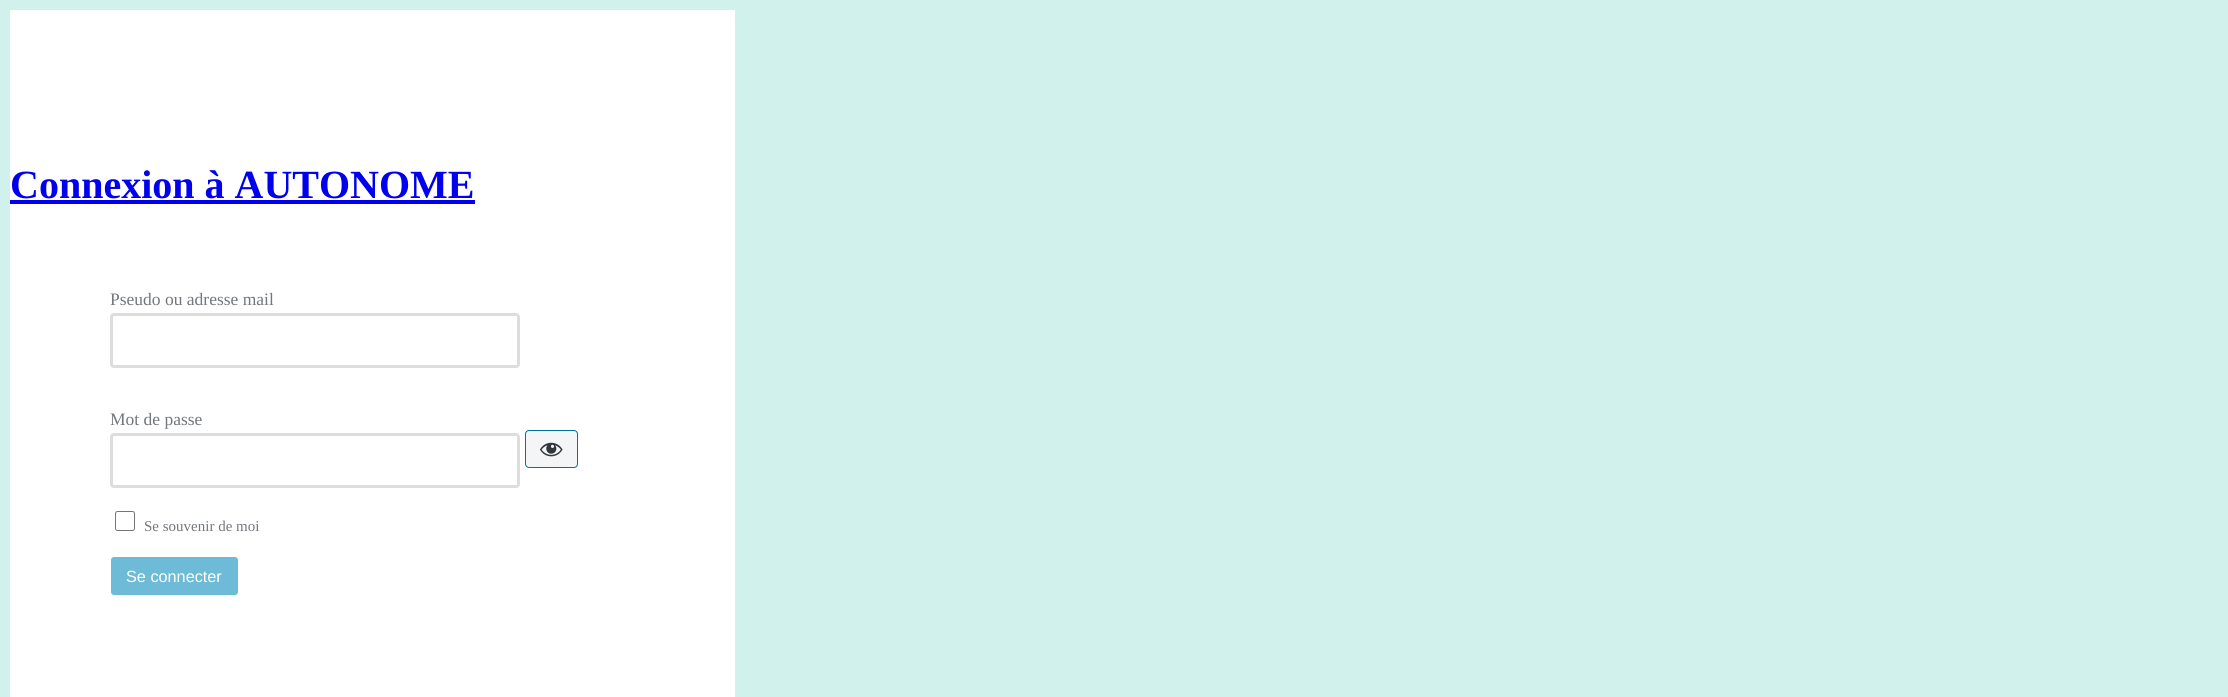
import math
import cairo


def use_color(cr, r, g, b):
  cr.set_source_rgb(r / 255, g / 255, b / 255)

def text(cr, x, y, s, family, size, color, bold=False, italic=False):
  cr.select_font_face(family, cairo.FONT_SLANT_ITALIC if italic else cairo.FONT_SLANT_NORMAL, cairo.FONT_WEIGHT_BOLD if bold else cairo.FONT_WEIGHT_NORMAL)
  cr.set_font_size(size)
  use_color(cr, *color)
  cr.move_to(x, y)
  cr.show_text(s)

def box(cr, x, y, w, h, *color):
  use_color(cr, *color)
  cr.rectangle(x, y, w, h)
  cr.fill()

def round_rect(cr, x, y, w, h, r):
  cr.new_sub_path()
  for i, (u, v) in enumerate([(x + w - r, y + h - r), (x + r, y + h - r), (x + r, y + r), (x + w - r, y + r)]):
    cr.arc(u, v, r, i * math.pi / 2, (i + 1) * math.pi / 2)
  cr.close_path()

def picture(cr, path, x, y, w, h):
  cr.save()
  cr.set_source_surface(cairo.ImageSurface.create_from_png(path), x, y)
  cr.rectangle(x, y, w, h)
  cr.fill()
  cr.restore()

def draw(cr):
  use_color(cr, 208, 241, 236)
  cr.paint()
  box(cr, 10, 10, 725, 687, 255, 255, 255)
  box(cr, 10, 200, 465, 4, 0, 0, 238)
  round_rect(cr, 111.5, 314.5, 407, 52, 2.5)
  use_color(cr, 221, 221, 221)
  cr.set_line_width(3)
  cr.stroke()
  round_rect(cr, 111.5, 434.5, 407, 52, 2.5)
  cr.stroke()
  use_color(cr, 243, 245, 246)
  round_rect(cr, 525.5, 430.5, 52, 37, 3.5)
  cr.fill_preserve()
  use_color(cr, 0, 113, 161)
  cr.set_line_width(1)
  cr.stroke()
  picture(cr, "img_01.png", 539, 442, 24, 15)
  round_rect(cr, 115.5, 511.5, 19, 19, 2)
  use_color(cr, 118, 118, 118)
  cr.stroke()
  use_color(cr, 109, 187, 214)
  round_rect(cr, 110.5, 556.5, 128, 39, 3.5)
  cr.fill_preserve()
  use_color(cr, 255, 255, 255)
  cr.stroke()
  text(cr, 10, 198, "Connexion à AUTONOME", "Liberation Serif", 40, (0, 0, 238), bold=True)
  text(cr, 110, 305, "Pseudo ou adresse mail", "Liberation Serif", 17.5, (114, 119, 124))
  text(cr, 110, 425, "Mot de passe", "Liberation Serif", 17.5, (114, 119, 124))
  text(cr, 144, 531, "Se souvenir de moi", "Liberation Serif", 15, (114, 119, 124))
  text(cr, 126, 582, "Se connecter", "Liberation Sans", 16.25, (255, 255, 255))


surface = cairo.ImageSurface(cairo.FORMAT_RGB24, 2228, 697)
cr = cairo.Context(surface)
options = cairo.FontOptions()
options.set_hint_metrics(cairo.HINT_METRICS_OFF)
options.set_hint_style(cairo.HINT_STYLE_NONE)
cr.set_font_options(options)
cr.set_miter_limit(4)
draw(cr)
surface.write_to_png("out.png")
